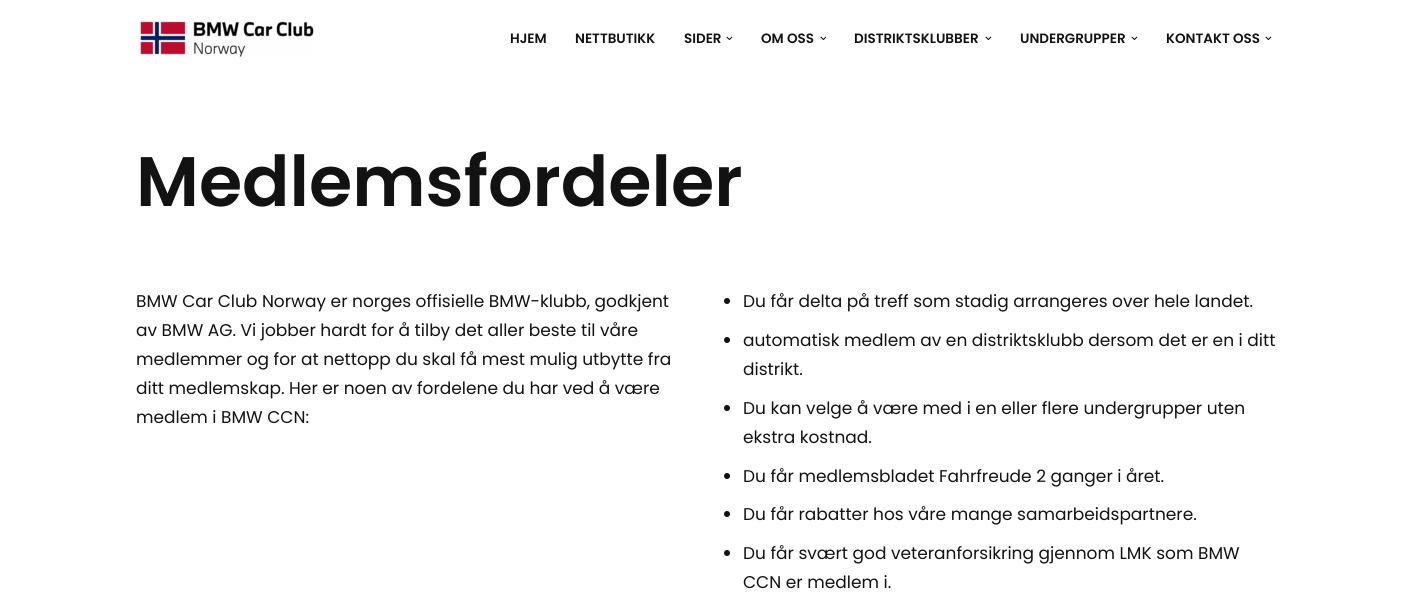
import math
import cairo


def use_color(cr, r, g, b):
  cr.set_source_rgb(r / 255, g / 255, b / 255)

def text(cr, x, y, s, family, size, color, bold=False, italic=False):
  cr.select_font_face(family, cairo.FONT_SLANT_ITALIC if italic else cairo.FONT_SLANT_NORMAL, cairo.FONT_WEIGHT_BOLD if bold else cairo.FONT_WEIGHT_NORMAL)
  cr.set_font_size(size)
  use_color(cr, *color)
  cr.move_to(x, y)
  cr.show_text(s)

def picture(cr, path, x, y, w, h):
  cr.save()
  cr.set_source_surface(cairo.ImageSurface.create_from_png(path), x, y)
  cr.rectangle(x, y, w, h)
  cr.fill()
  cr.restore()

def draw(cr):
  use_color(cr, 255, 255, 255)
  cr.paint()
  picture(cr, "img_01.png", 140, 21, 174, 36)
  picture(cr, "img_02.png", 726, 36, 7, 5)
  picture(cr, "img_03.png", 820, 36, 6, 5)
  picture(cr, "img_02.png", 985, 36, 7, 5)
  picture(cr, "img_02.png", 1131, 36, 7, 5)
  picture(cr, "img_02.png", 1265, 36, 7, 5)
  use_color(cr, 18, 18, 18)
  cr.arc(727, 301, 3, 0, 2 * math.pi)
  cr.fill()
  cr.arc(727, 340, 3, 0, 2 * math.pi)
  cr.fill()
  cr.arc(727, 408, 3, 0, 2 * math.pi)
  cr.fill()
  cr.arc(727, 476, 3, 0, 2 * math.pi)
  cr.fill()
  cr.arc(727, 514, 3, 0, 2 * math.pi)
  cr.fill()
  cr.arc(727, 553, 3, 0, 2 * math.pi)
  cr.fill()
  text(cr, 510, 43, "HJEM", "Poppins SemiBold", 13.5, (18, 18, 18))
  text(cr, 575, 43, "NETTBUTIKK", "Poppins SemiBold", 13.5, (18, 18, 18))
  text(cr, 684, 43, "SIDER", "Poppins SemiBold", 13.5, (18, 18, 18))
  text(cr, 761, 43, "OM OSS", "Poppins SemiBold", 13.5, (18, 18, 18))
  text(cr, 854, 43, "DISTRIKTSKLUBBER", "Poppins SemiBold", 13.5, (18, 18, 18))
  text(cr, 1020, 43, "UNDERGRUPPER", "Poppins SemiBold", 13.5, (18, 18, 18))
  text(cr, 1166, 43, "KONTAKT OSS", "Poppins SemiBold", 13.5, (18, 18, 18))
  text(cr, 136, 206, "Medlemsfordeler", "Poppins SemiBold", 70, (18, 18, 18))
  text(cr, 136, 307, "BMW Car Club Norway er norges offisielle BMW-klubb, godkjent", "Poppins", 17, (18, 18, 18))
  text(cr, 136, 336, "av BMW AG. Vi jobber hardt for å tilby det aller beste til våre", "Poppins", 17, (18, 18, 18))
  text(cr, 136, 365, "medlemmer og for at nettopp du skal få mest mulig utbytte fra", "Poppins", 17, (18, 18, 18))
  text(cr, 136, 394, "ditt medlemskap. Her er noen av fordelene du har ved å være", "Poppins", 17, (18, 18, 18))
  text(cr, 136, 423, "medlem i BMW CCN:", "Poppins", 17, (18, 18, 18))
  text(cr, 743, 307, "Du får delta på treff som stadig arrangeres over hele landet.", "Poppins", 17, (18, 18, 18))
  text(cr, 743, 346, "automatisk medlem av en distriktsklubb dersom det er en i ditt", "Poppins", 17, (18, 18, 18))
  text(cr, 743, 375, "distrikt.", "Poppins", 17, (18, 18, 18))
  text(cr, 743, 414, "Du kan velge å være med i en eller flere undergrupper uten", "Poppins", 17, (18, 18, 18))
  text(cr, 743, 443, "ekstra kostnad.", "Poppins", 17, (18, 18, 18))
  text(cr, 743, 482, "Du får medlemsbladet Fahrfreude 2 ganger i året.", "Poppins", 17, (18, 18, 18))
  text(cr, 743, 520, "Du får rabatter hos våre mange samarbeidspartnere.", "Poppins", 17, (18, 18, 18))
  text(cr, 743, 559, "Du får svært god veteranforsikring gjennom LMK som BMW", "Poppins", 17, (18, 18, 18))
  text(cr, 743, 588, "CCN er medlem i.", "Poppins", 17, (18, 18, 18))


surface = cairo.ImageSurface(cairo.FORMAT_RGB24, 1412, 597)
cr = cairo.Context(surface)
options = cairo.FontOptions()
options.set_hint_metrics(cairo.HINT_METRICS_OFF)
options.set_hint_style(cairo.HINT_STYLE_NONE)
cr.set_font_options(options)
cr.set_miter_limit(4)
draw(cr)
surface.write_to_png("out.png")
